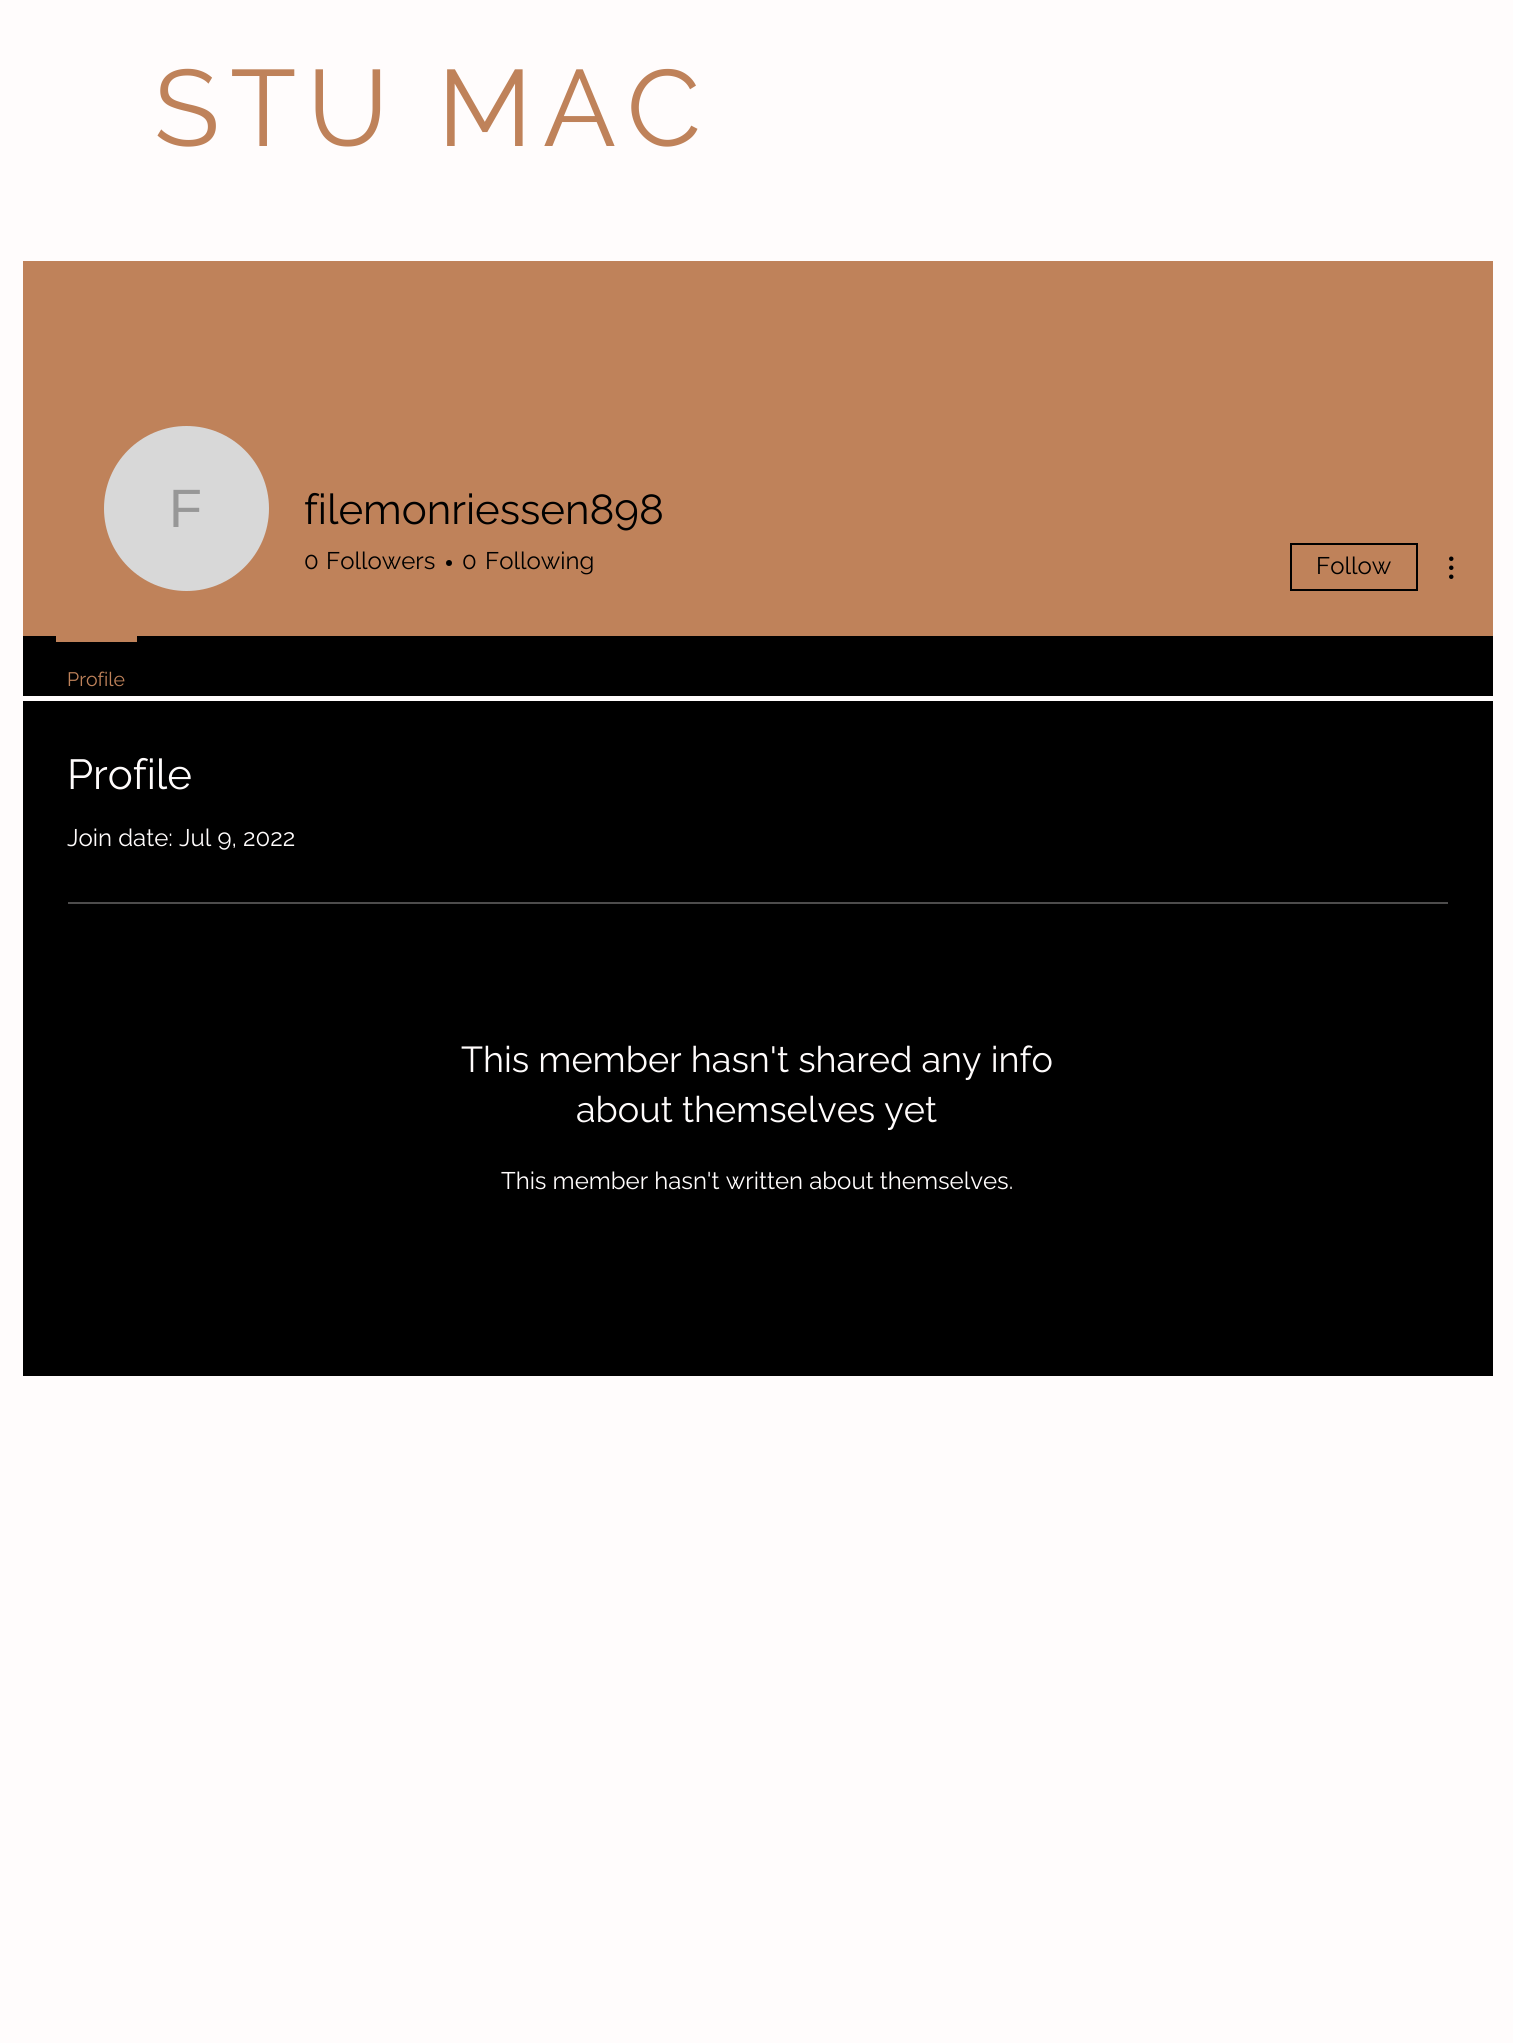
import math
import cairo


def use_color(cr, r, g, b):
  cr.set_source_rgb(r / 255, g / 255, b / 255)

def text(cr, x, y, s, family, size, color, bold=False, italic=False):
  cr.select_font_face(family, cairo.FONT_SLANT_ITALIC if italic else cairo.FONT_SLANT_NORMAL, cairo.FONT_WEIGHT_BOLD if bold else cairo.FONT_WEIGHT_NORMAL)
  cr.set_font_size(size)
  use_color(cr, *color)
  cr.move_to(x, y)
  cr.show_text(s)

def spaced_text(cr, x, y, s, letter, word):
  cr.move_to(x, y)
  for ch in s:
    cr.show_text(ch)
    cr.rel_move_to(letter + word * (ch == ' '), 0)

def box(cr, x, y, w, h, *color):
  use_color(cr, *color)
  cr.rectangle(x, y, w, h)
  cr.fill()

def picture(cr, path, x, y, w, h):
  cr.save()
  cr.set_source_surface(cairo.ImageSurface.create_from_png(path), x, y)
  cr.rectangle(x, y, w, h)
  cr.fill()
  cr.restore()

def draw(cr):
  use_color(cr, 255, 252, 252)
  cr.paint()
  box(cr, 23, 261, 1470, 375, 191, 130, 90)
  use_color(cr, 216, 216, 216)
  cr.arc(186.5, 508.5, 82.5, 0, 2 * math.pi)
  cr.fill()
  use_color(cr, 0, 0, 0)
  cr.arc(449, 563, 3, 0, 2 * math.pi)
  cr.fill()
  cr.rectangle(1291, 544, 126, 46)
  cr.stroke()
  picture(cr, "img_01.png", 1449, 556, 5, 23)
  box(cr, 23, 636, 1470, 60, 0, 0, 0)
  box(cr, 56, 636, 81, 6, 191, 130, 90)
  box(cr, 23, 701, 1470, 675, 0, 0, 0)
  box(cr, 68, 902, 1380, 2, 77, 76, 76)
  cr.select_font_face("Raleway")
  cr.set_font_size(108)
  use_color(cr, 191, 130, 90)
  spaced_text(cr, 154, 146, "STU MAC", 10.75, 0)
  text(cr, 169, 527, "F", "Liberation Sans", 54, (151, 151, 151))
  text(cr, 304, 524, "filemonriessen898", "Raleway", 42, (0, 0, 0))
  text(cr, 304, 569, "0", "Raleway", 24, (0, 0, 0))
  text(cr, 326, 569, "Followers", "Raleway", 24, (0, 0, 0))
  text(cr, 462, 569, "0", "Raleway", 24, (0, 0, 0))
  text(cr, 485, 569, "Following", "Raleway", 24, (0, 0, 0))
  text(cr, 1316, 574, "Follow", "Raleway", 24, (0, 0, 0))
  text(cr, 67, 686, "Profile", "Raleway", 19.5, (191, 130, 90))
  text(cr, 67, 789, "Profile", "Raleway", 42, (255, 252, 252))
  text(cr, 67, 846, "Join date: Jul 9, 2022", "Raleway", 24, (255, 252, 252))
  text(cr, 461, 1072, "This member hasn't shared any info", "Raleway", 36, (255, 252, 252))
  text(cr, 576, 1122, "about themselves yet", "Raleway", 36, (255, 252, 252))
  text(cr, 501, 1189, "This member hasn't written about themselves.", "Raleway", 24, (255, 252, 252))


surface = cairo.ImageSurface(cairo.FORMAT_RGB24, 1513, 2043)
cr = cairo.Context(surface)
options = cairo.FontOptions()
options.set_hint_metrics(cairo.HINT_METRICS_OFF)
options.set_hint_style(cairo.HINT_STYLE_NONE)
cr.set_font_options(options)
cr.set_miter_limit(4)
draw(cr)
surface.write_to_png("out.png")
